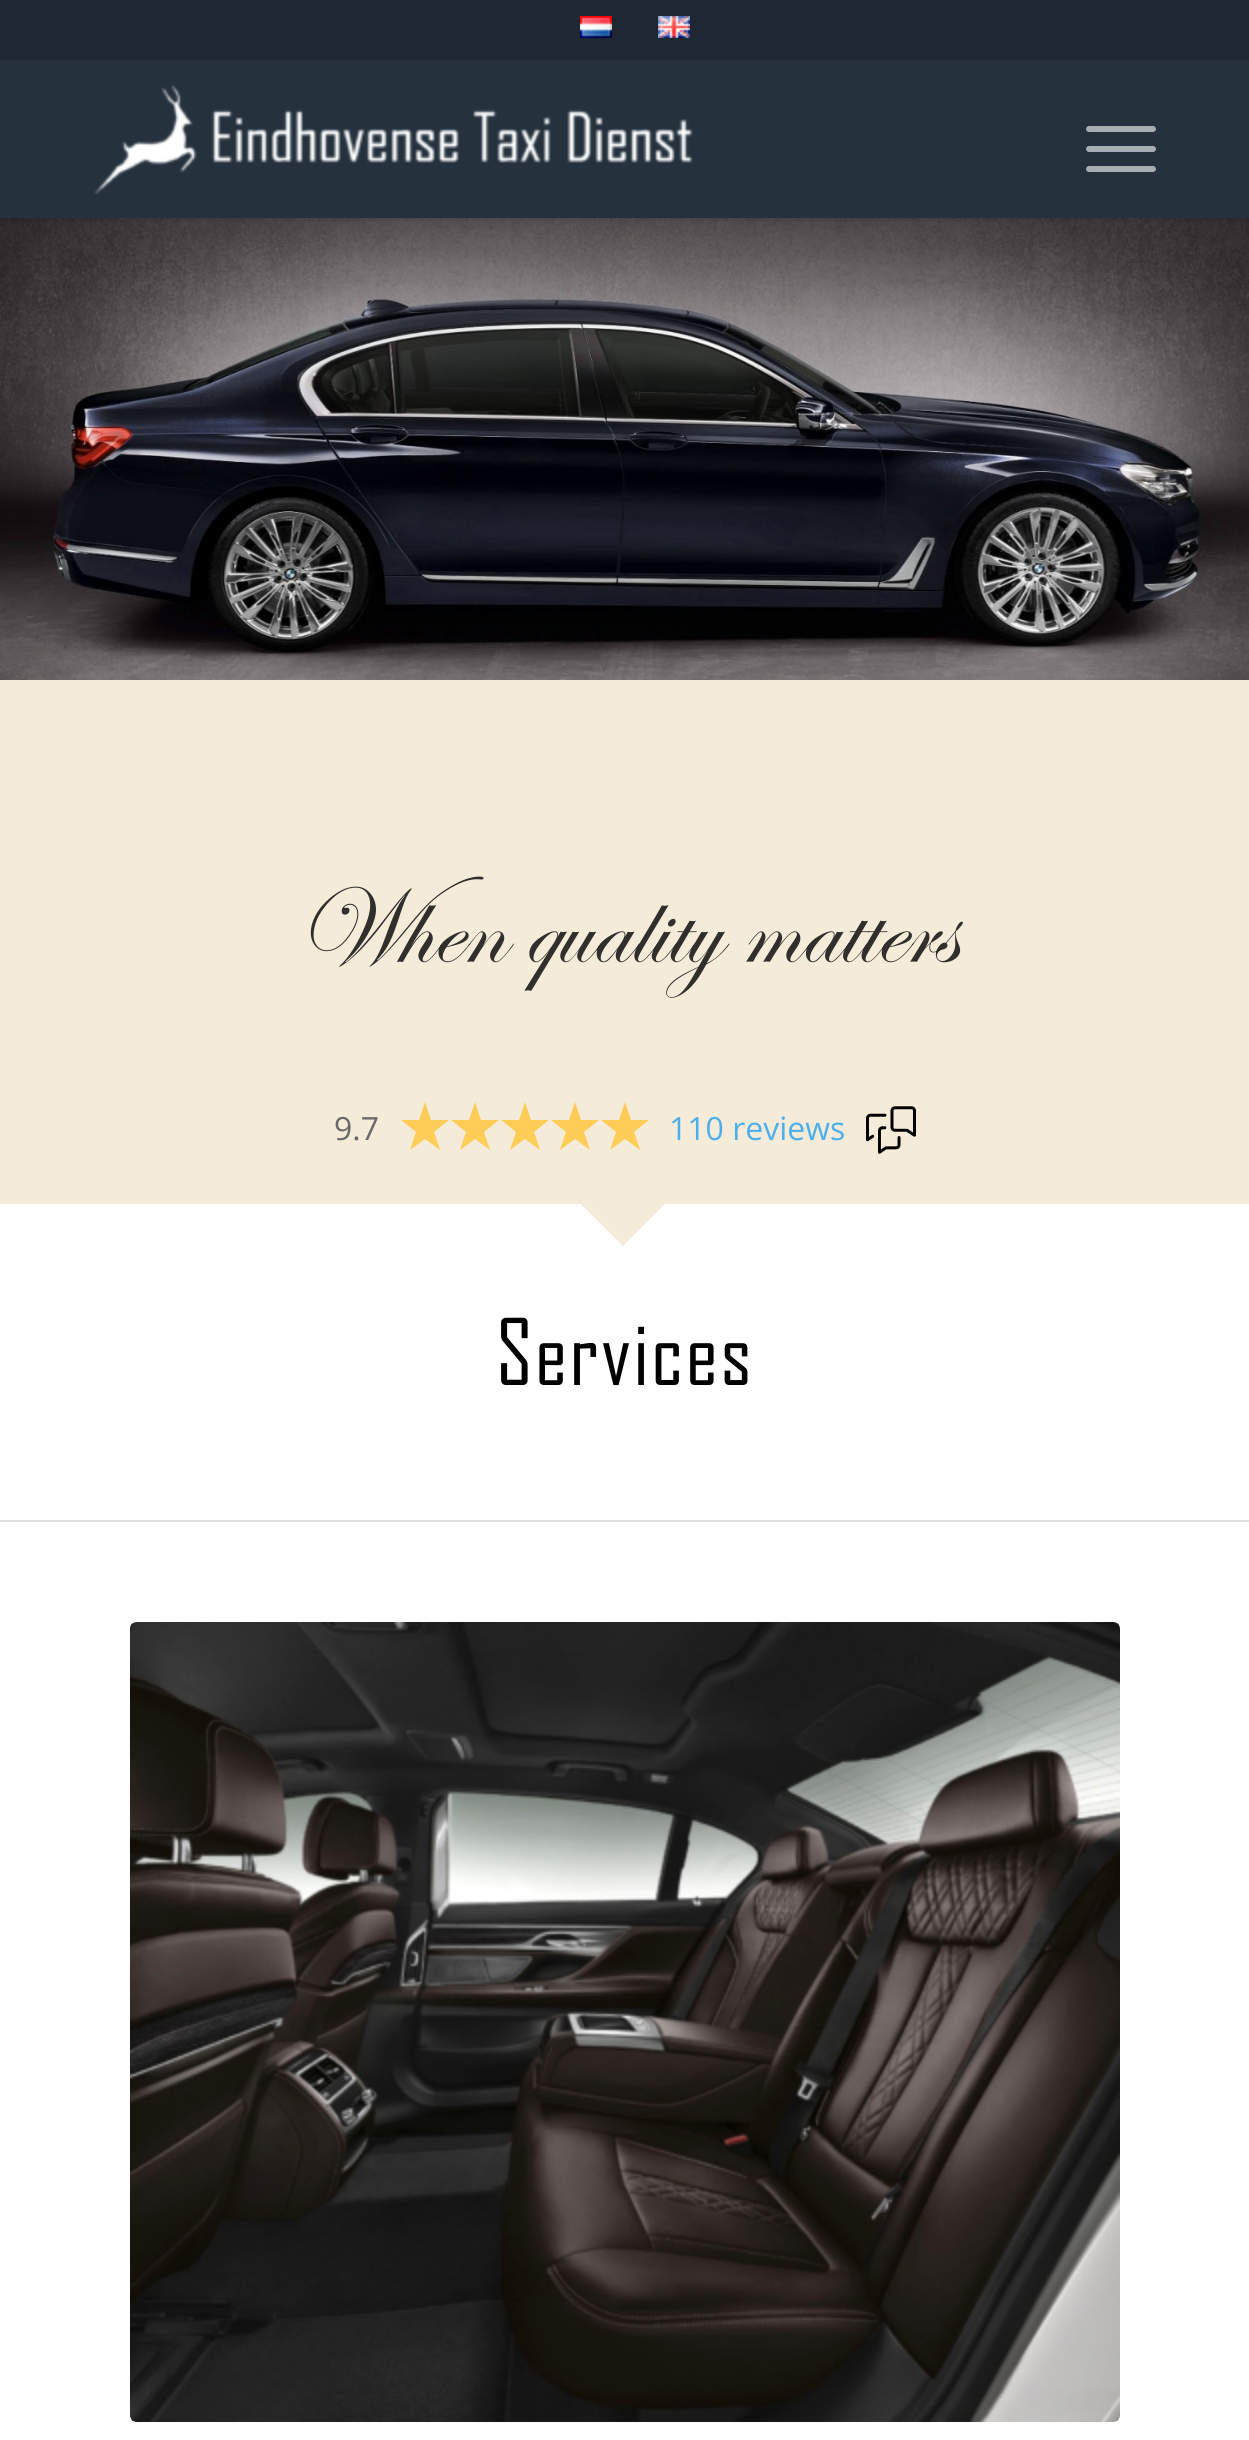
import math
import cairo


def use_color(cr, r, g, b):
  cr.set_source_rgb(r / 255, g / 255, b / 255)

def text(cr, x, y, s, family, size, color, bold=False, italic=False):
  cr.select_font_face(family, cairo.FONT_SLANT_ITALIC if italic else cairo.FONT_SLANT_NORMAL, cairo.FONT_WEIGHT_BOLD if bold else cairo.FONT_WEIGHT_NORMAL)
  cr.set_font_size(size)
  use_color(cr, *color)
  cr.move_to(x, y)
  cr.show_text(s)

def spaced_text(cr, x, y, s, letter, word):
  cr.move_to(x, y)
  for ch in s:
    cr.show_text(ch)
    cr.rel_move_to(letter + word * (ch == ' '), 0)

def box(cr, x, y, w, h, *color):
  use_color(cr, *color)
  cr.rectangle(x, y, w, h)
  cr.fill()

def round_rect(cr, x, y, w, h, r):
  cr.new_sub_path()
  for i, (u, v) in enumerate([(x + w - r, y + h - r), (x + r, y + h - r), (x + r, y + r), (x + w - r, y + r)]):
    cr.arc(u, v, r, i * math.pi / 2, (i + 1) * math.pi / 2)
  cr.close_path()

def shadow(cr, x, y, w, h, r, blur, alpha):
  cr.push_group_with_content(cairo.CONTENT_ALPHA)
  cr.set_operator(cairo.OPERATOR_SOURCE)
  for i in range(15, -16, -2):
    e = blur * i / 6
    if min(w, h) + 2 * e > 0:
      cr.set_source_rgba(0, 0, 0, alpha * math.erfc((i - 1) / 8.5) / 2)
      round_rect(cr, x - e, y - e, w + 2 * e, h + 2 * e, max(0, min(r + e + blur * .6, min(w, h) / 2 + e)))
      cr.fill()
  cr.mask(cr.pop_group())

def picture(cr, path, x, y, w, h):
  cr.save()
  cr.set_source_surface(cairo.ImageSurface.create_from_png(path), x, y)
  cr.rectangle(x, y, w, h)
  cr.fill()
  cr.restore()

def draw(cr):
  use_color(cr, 244, 235, 217)
  cr.paint()
  picture(cr, "img_04.png", 0, 218, 1249, 462)
  use_color(cr, 0, 0, 0)
  shadow(cr, -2, -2, 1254, 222, 0, 2, 0.1)
  box(cr, 0, 0, 1249, 60, 30, 40, 50)
  picture(cr, "img_01.png", 580, 16, 32, 22)
  picture(cr, "img_02.png", 658, 16, 32, 22)
  box(cr, 0, 60, 1249, 158, 37, 50, 62)
  picture(cr, "img_03.png", 94, 84, 599, 110)
  use_color(cr, 167, 173, 177)
  round_rect(cr, 1086, 146, 70, 6, 3)
  cr.fill()
  round_rect(cr, 1086, 126, 70, 6, 3)
  cr.fill()
  round_rect(cr, 1086, 166, 70, 6, 3)
  cr.fill()
  use_color(cr, 254, 205, 88)
  cr.new_path()
  cr.move_to(440, 1150)
  cr.line_to(434, 1132)
  cr.line_to(449, 1120)
  cr.line_to(431, 1120)
  cr.line_to(425, 1102)
  cr.line_to(419, 1120)
  cr.line_to(401, 1120)
  cr.line_to(416, 1132)
  cr.line_to(410, 1150)
  cr.line_to(425, 1139)
  cr.close_path()
  cr.fill()
  cr.new_path()
  cr.move_to(490, 1150)
  cr.line_to(484, 1132)
  cr.line_to(499, 1120)
  cr.line_to(481, 1120)
  cr.line_to(475, 1102)
  cr.line_to(469, 1120)
  cr.line_to(451, 1120)
  cr.line_to(466, 1132)
  cr.line_to(460, 1150)
  cr.line_to(475, 1139)
  cr.close_path()
  cr.fill()
  cr.new_path()
  cr.move_to(540, 1150)
  cr.line_to(534, 1132)
  cr.line_to(549, 1120)
  cr.line_to(531, 1120)
  cr.line_to(525, 1102)
  cr.line_to(519, 1120)
  cr.line_to(501, 1120)
  cr.line_to(516, 1132)
  cr.line_to(510, 1150)
  cr.line_to(525, 1139)
  cr.close_path()
  cr.fill()
  cr.new_path()
  cr.move_to(590, 1150)
  cr.line_to(584, 1132)
  cr.line_to(599, 1120)
  cr.line_to(581, 1120)
  cr.line_to(575, 1102)
  cr.line_to(569, 1120)
  cr.line_to(551, 1120)
  cr.line_to(566, 1132)
  cr.line_to(560, 1150)
  cr.line_to(575, 1139)
  cr.close_path()
  cr.fill()
  cr.new_path()
  cr.move_to(640, 1150)
  cr.line_to(634, 1132)
  cr.line_to(649, 1120)
  cr.line_to(631, 1120)
  cr.line_to(625, 1102)
  cr.line_to(619, 1120)
  cr.line_to(601, 1120)
  cr.line_to(616, 1132)
  cr.line_to(610, 1150)
  cr.line_to(625, 1139)
  cr.close_path()
  cr.fill()
  picture(cr, "img_05.png", 866, 1106, 50, 48)
  box(cr, 0, 1204, 1249, 316, 255, 255, 255)
  cr.save()
  cr.rectangle(574, 1204, 100, 50)
  cr.clip()
  use_color(cr, 244, 235, 217)
  cr.new_path()
  cr.move_to(623, 1104)
  cr.line_to(694, 1175)
  cr.line_to(623, 1246)
  cr.line_to(552, 1175)
  cr.close_path()
  cr.fill()
  cr.restore()
  box(cr, 0, 1522, 1249, 918, 255, 255, 255)
  box(cr, 0, 1520, 1249, 2, 225, 225, 225)
  picture(cr, "img_06.png", 130, 1622, 990, 800)
  text(cr, 294, 961, "When quality matters", "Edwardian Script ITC", 112, (48, 47, 43))
  text(cr, 334, 1140, "9.7", "Open Sans", 32, (105, 105, 105))
  text(cr, 669, 1140, "110 reviews", "Open Sans", 32, (77, 175, 235))
  cr.select_font_face("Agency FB")
  cr.set_font_size(88)
  use_color(cr, 0, 0, 0)
  spaced_text(cr, 496, 1385, "Services", 2, 0)


surface = cairo.ImageSurface(cairo.FORMAT_RGB24, 1249, 2440)
cr = cairo.Context(surface)
options = cairo.FontOptions()
options.set_hint_metrics(cairo.HINT_METRICS_OFF)
options.set_hint_style(cairo.HINT_STYLE_NONE)
cr.set_font_options(options)
cr.set_miter_limit(4)
draw(cr)
surface.write_to_png("out.png")
